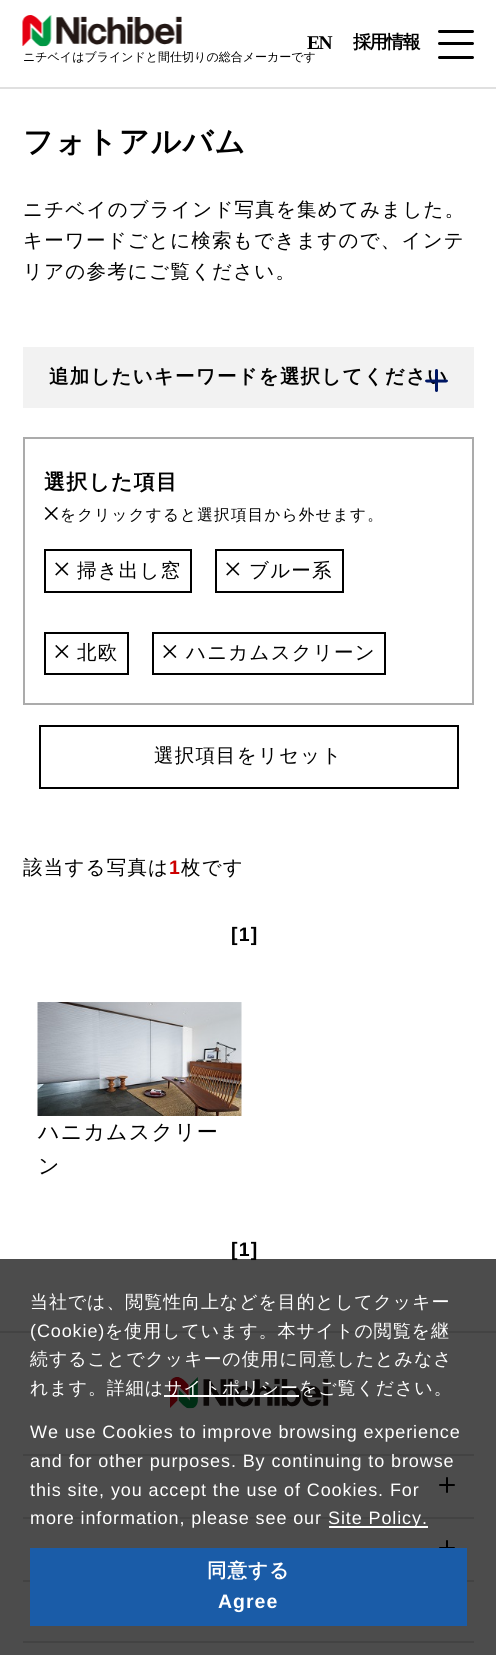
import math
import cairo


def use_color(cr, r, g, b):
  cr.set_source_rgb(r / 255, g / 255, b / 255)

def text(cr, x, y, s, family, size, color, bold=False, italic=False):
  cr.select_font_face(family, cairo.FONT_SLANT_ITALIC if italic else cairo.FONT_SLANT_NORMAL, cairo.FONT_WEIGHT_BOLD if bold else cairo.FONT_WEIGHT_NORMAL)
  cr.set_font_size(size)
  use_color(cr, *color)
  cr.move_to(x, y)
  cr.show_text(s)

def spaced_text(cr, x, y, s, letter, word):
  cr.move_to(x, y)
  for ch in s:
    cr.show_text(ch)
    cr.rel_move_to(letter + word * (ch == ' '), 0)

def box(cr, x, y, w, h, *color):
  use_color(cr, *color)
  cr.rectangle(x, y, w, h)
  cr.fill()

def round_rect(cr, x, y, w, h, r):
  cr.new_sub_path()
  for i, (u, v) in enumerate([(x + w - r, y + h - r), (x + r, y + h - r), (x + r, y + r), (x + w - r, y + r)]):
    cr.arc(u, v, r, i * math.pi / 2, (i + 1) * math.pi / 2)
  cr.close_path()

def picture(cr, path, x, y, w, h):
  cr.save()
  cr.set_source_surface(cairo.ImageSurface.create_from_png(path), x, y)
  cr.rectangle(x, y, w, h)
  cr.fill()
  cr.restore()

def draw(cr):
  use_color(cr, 255, 255, 255)
  cr.paint()
  box(cr, 0, 87, 496, 2, 224, 224, 224)
  use_color(cr, 0, 0, 0)
  round_rect(cr, 438, 30, 36, 3, 1.5)
  cr.fill()
  round_rect(cr, 438, 42, 36, 3, 1.5)
  cr.fill()
  round_rect(cr, 438, 56, 36, 3, 1.5)
  cr.fill()
  picture(cr, "img_01.png", 22, 15, 160, 32)
  box(cr, 23, 347, 451, 61, 242, 242, 242)
  cr.rectangle(24, 438, 449, 266)
  use_color(cr, 171, 171, 171)
  cr.stroke()
  picture(cr, "img_02.png", 44, 507, 14, 13)
  cr.rectangle(45, 550, 146, 42)
  use_color(cr, 0, 0, 0)
  cr.stroke()
  picture(cr, "img_03.png", 55, 562, 14, 14)
  cr.rectangle(216, 550, 127, 42)
  cr.stroke()
  picture(cr, "img_03.png", 226, 562, 14, 14)
  cr.rectangle(45, 633, 83, 41)
  cr.stroke()
  picture(cr, "img_04.png", 55, 645, 14, 13)
  cr.rectangle(153, 633, 232, 41)
  cr.stroke()
  picture(cr, "img_04.png", 163, 645, 14, 13)
  cr.rectangle(40, 726, 418, 62)
  cr.stroke()
  picture(cr, "img_05.png", 37, 1002, 205, 114)
  box(cr, 0, 1331, 496, 2, 224, 224, 224)
  picture(cr, "img_06.png", 170, 1377, 159, 32)
  box(cr, 23, 1454, 451, 2, 224, 224, 224)
  picture(cr, "img_07.png", 439, 1477, 16, 16)
  box(cr, 23, 1517, 451, 2, 224, 224, 224)
  picture(cr, "img_08.png", 439, 1540, 16, 8)
  box(cr, 23, 1580, 451, 2, 224, 224, 224)
  box(cr, 23, 1641, 451, 2, 224, 224, 224)
  cr.select_font_face("Liberation Serif", cairo.FONT_SLANT_NORMAL, cairo.FONT_WEIGHT_BOLD)
  cr.set_font_size(19.5)
  use_color(cr, 0, 0, 0)
  spaced_text(cr, 307, 49, "EN", -1.5, 0)
  cr.select_font_face("WenQuanYi Zen Hei", cairo.FONT_SLANT_NORMAL, cairo.FONT_WEIGHT_BOLD)
  cr.set_font_size(18)
  spaced_text(cr, 353, 48, "採用情報", -1.5, 0)
  text(cr, 23, 61, "ニチベイはブラインドと間仕切りの総合メーカーです", "WenQuanYi Zen Hei Medium", 12, (0, 0, 0))
  cr.select_font_face("WenQuanYi Zen Hei", cairo.FONT_SLANT_NORMAL, cairo.FONT_WEIGHT_BOLD)
  cr.set_font_size(30)
  spaced_text(cr, 23, 152, "フォトアルバム", 1.2, 0)
  cr.select_font_face("WenQuanYi Zen Hei Medium")
  cr.set_font_size(19.5)
  spaced_text(cr, 23, 216, "ニチベイのブラインド写真を集めてみました。", 1.2, 0)
  spaced_text(cr, 23, 247, "キーワードごとに検索もできますので、インテ", 1.2, 0)
  spaced_text(cr, 23, 278, "リアの参考にご覧ください。", 1.2, 0)
  cr.select_font_face("WenQuanYi Zen Hei", cairo.FONT_SLANT_NORMAL, cairo.FONT_WEIGHT_BOLD)
  spaced_text(cr, 49, 383, "追加したいキーワードを選択してください", 1.2, 0)
  use_color(cr, 0, 23, 100)
  cr.new_path()
  cr.move_to(448, 381)
  cr.curve_to(448, 381.5, 447, 382.5, 446, 382.5)
  cr.line_to(427, 382.5)
  cr.curve_to(426, 382.5, 425, 381.5, 425, 381)
  cr.curve_to(425, 380, 426, 379.5, 427, 379.5)
  cr.line_to(446, 379.5)
  cr.curve_to(447, 379.5, 448, 380, 448, 381)
  cr.close_path()
  cr.fill()
  round_rect(cr, 435, 369, 3, 23, 1.5)
  cr.fill()
  cr.set_font_size(21)
  use_color(cr, 0, 0, 0)
  spaced_text(cr, 44, 489, "選択した項目", 1.2, 0)
  cr.select_font_face("WenQuanYi Zen Hei Medium")
  cr.set_font_size(15.6)
  spaced_text(cr, 60, 520, "をクリックすると選択項目から外せます。", 1.2, 0)
  cr.set_font_size(19.5)
  spaced_text(cr, 77, 577, "掃き出し窓", 1.2, 0)
  spaced_text(cr, 249, 577, "ブルー系", 1.2, 0)
  spaced_text(cr, 77, 659, "北欧", 1.2, 0)
  spaced_text(cr, 186, 659, "ハニカムスクリーン", 1.2, 0)
  spaced_text(cr, 154, 762, "選択項目をリセット", 1.2, 0)
  spaced_text(cr, 23, 874, "該当する写真は", 1.2, 0)
  cr.select_font_face("Liberation Sans", cairo.FONT_SLANT_NORMAL, cairo.FONT_WEIGHT_BOLD)
  use_color(cr, 204, 0, 0)
  spaced_text(cr, 169, 874, "1", 1.2, 0)
  cr.select_font_face("WenQuanYi Zen Hei Medium")
  use_color(cr, 0, 0, 0)
  spaced_text(cr, 181, 874, "枚です", 1.2, 0)
  cr.select_font_face("Liberation Sans", cairo.FONT_SLANT_NORMAL, cairo.FONT_WEIGHT_BOLD)
  spaced_text(cr, 231, 941, "[1]", 1.2, 0)
  cr.select_font_face("WenQuanYi Zen Hei Medium")
  cr.set_font_size(21)
  spaced_text(cr, 38, 1139, "ハニカムスクリー", 1.2, 0)
  spaced_text(cr, 38, 1173, "ン", 1.2, 0)
  cr.select_font_face("Liberation Sans", cairo.FONT_SLANT_NORMAL, cairo.FONT_WEIGHT_BOLD)
  cr.set_font_size(19.5)
  spaced_text(cr, 231, 1256, "[1]", 1.2, 0)
  cr.set_source_rgba(0, 0, 0, 0.7)
  cr.rectangle(0, 1259, 496, 396)
  cr.fill()
  cr.select_font_face("WenQuanYi Zen Hei Medium")
  cr.set_font_size(18)
  use_color(cr, 255, 255, 255)
  spaced_text(cr, 30, 1308, "当社では、閲覧性向上などを目的としてクッキー", 0.9, 0)
  cr.select_font_face("Liberation Sans")
  spaced_text(cr, 30, 1337, "(Cookie)", 0.9, 0)
  cr.select_font_face("WenQuanYi Zen Hei Medium")
  spaced_text(cr, 105, 1337, "を使用しています。本サイトの閲覧を継", 0.9, 0)
  spaced_text(cr, 30, 1365, "続することでクッキーの使用に同意したとみなさ", 0.9, 0)
  spaced_text(cr, 30, 1394, "れます。詳細は", 0.9, 0)
  box(cr, 164, 1395, 135, 2, 255, 255, 255)
  spaced_text(cr, 164, 1394, "サイトポリシーをご覧ください。", 0.9, 0)
  cr.select_font_face("Liberation Sans")
  spaced_text(cr, 30, 1438, "We use Cookies to improve browsing experience", 0.9, 0)
  spaced_text(cr, 30, 1467, "and for other purposes. By continuing to browse", 0.9, 0)
  spaced_text(cr, 30, 1496, "this site, you accept the use of Cookies. For", 0.9, 0)
  spaced_text(cr, 30, 1524, "more information, please see our", 0.9, 0)
  box(cr, 329, 1526, 99, 2, 255, 255, 255)
  spaced_text(cr, 328, 1524, "Site Policy.", 0.9, 0)
  box(cr, 30, 1548, 437, 78, 26, 92, 168)
  cr.select_font_face("WenQuanYi Zen Hei", cairo.FONT_SLANT_NORMAL, cairo.FONT_WEIGHT_BOLD)
  cr.set_font_size(19.5)
  use_color(cr, 255, 255, 255)
  spaced_text(cr, 207, 1577, "同意する", 1, 0)
  cr.select_font_face("Liberation Sans", cairo.FONT_SLANT_NORMAL, cairo.FONT_WEIGHT_BOLD)
  spaced_text(cr, 218, 1608, "Agree", 1, 0)


surface = cairo.ImageSurface(cairo.FORMAT_RGB24, 496, 1655)
cr = cairo.Context(surface)
options = cairo.FontOptions()
options.set_hint_metrics(cairo.HINT_METRICS_OFF)
options.set_hint_style(cairo.HINT_STYLE_NONE)
cr.set_font_options(options)
cr.set_miter_limit(4)
draw(cr)
surface.write_to_png("out.png")
